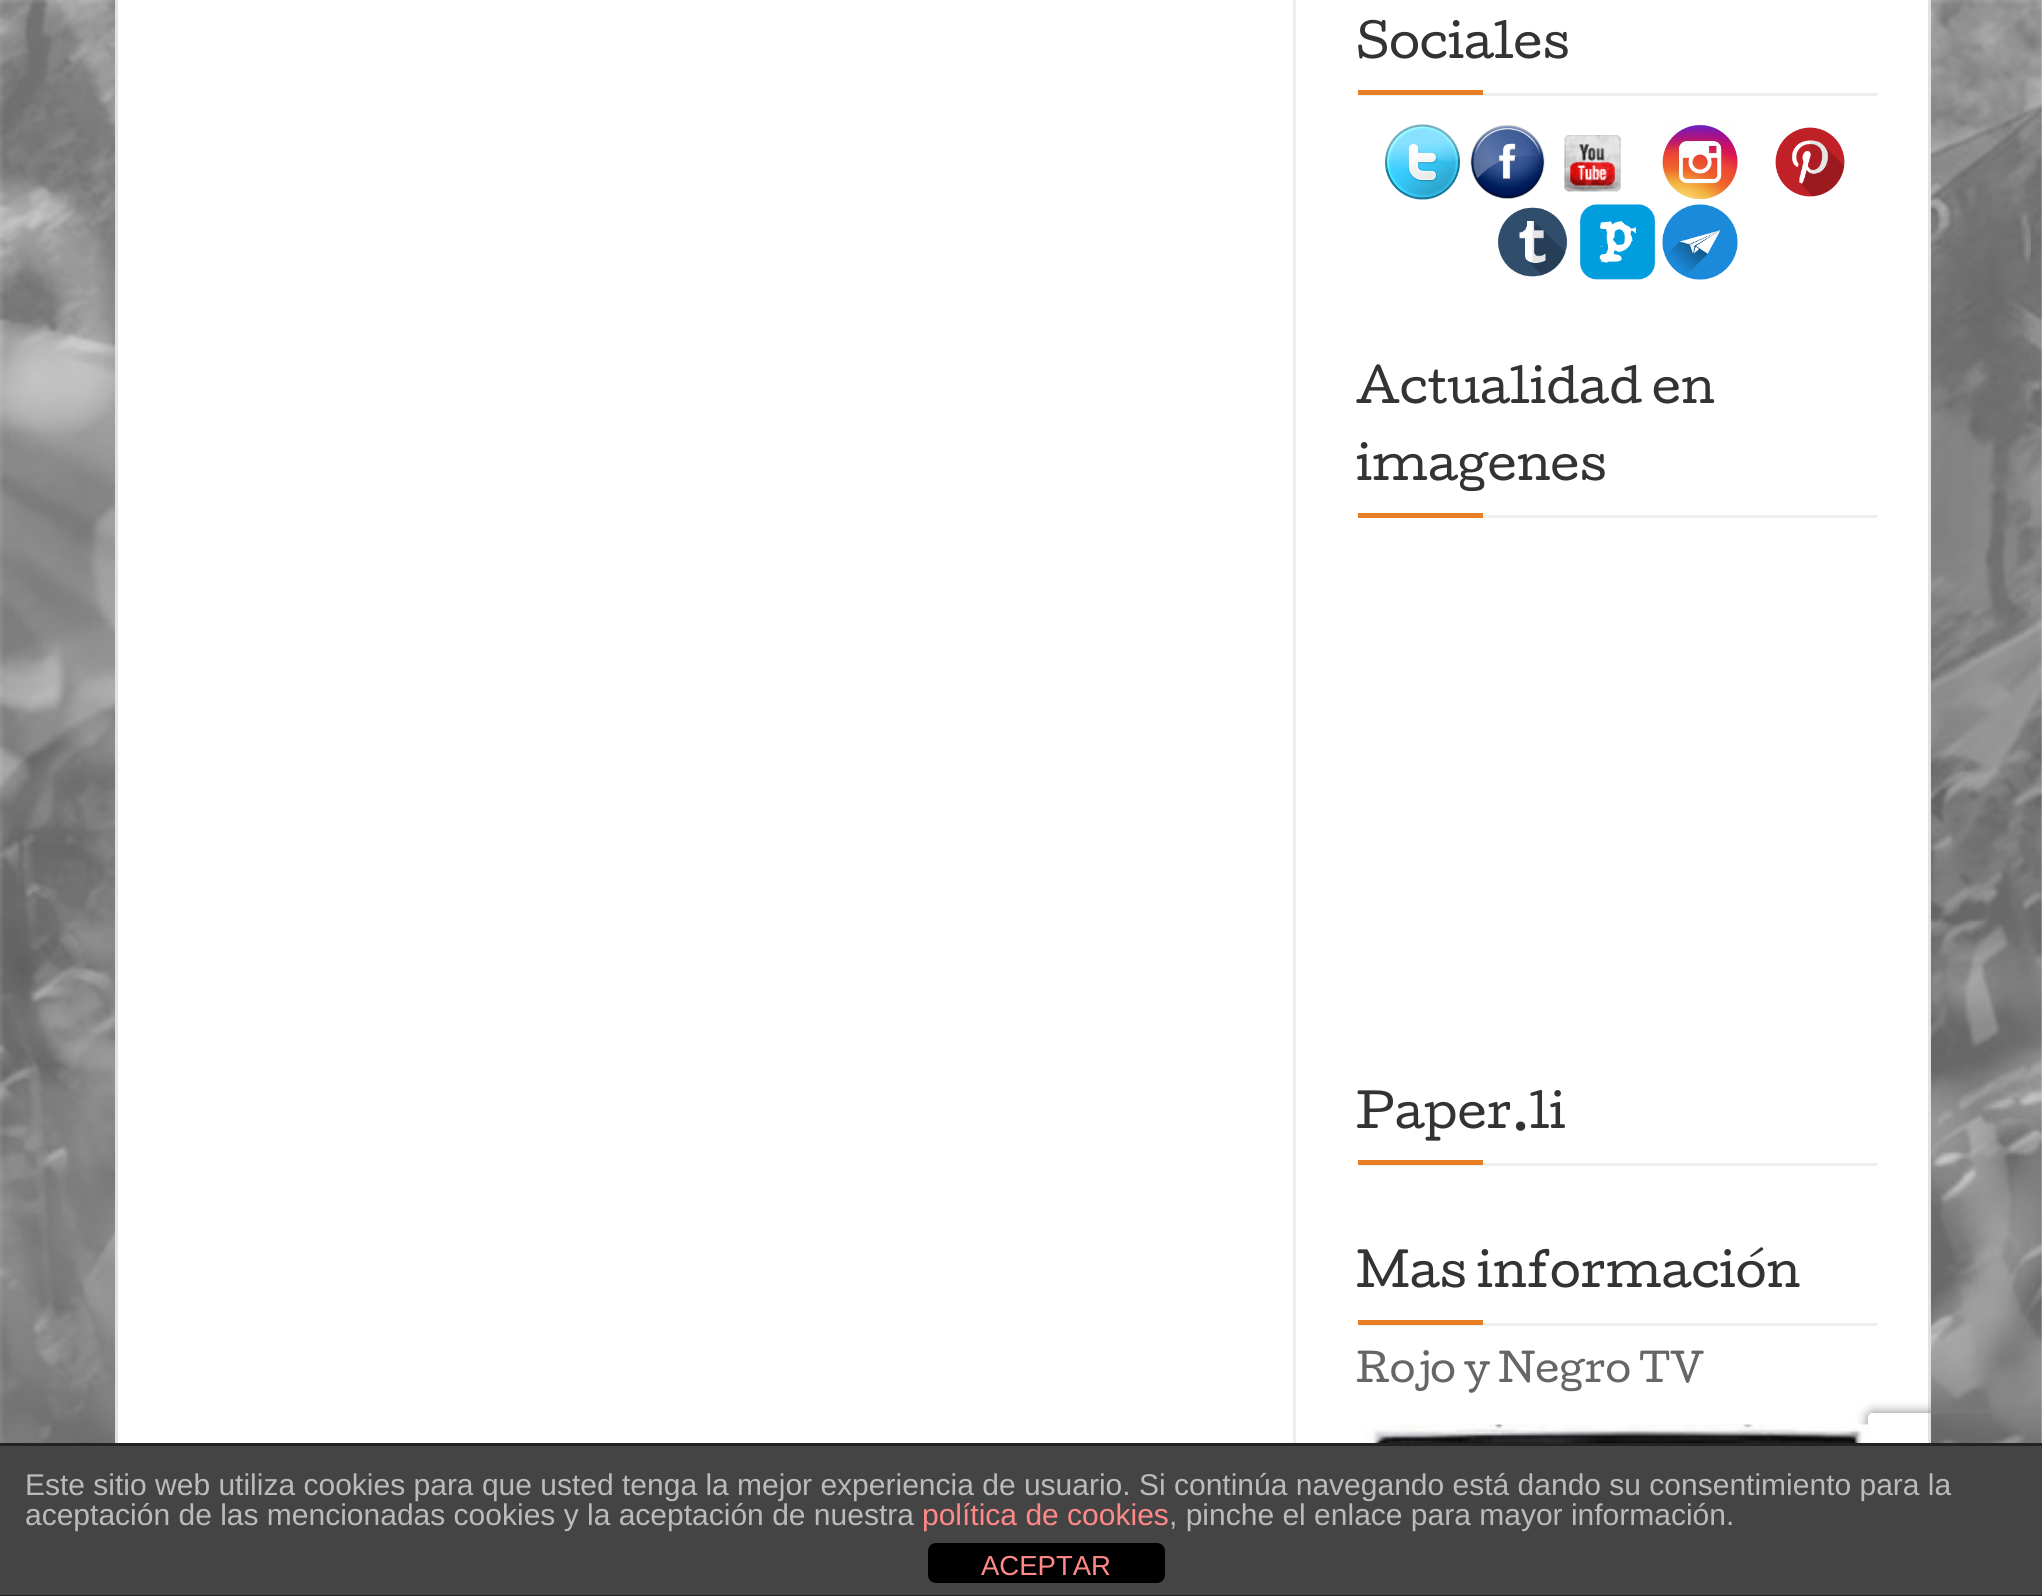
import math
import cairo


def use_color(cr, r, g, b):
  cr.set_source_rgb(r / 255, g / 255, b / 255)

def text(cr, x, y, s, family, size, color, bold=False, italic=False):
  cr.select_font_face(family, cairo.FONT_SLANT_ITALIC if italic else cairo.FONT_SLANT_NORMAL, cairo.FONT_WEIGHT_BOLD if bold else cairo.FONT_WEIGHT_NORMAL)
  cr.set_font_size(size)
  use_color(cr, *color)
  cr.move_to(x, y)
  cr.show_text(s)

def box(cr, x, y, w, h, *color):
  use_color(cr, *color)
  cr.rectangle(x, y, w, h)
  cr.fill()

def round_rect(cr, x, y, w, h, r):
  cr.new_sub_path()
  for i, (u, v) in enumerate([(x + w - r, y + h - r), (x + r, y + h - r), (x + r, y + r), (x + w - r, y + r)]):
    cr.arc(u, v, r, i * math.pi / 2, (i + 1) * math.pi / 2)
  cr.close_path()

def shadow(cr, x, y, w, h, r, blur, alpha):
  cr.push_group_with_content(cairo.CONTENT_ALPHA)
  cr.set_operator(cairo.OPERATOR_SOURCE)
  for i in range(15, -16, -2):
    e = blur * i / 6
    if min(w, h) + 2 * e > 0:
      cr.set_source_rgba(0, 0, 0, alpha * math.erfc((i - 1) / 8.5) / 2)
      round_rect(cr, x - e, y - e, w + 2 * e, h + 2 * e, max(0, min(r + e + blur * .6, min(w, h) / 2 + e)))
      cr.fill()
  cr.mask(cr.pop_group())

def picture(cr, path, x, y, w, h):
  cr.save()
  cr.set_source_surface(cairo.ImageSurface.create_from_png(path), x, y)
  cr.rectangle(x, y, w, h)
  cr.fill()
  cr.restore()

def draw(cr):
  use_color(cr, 255, 255, 255)
  cr.paint()
  picture(cr, "img_01.png", 0, 0, 2042, 1443)
  box(cr, 118, 0, 1810, 1443, 255, 255, 255)
  box(cr, 1928, 0, 3, 1443, 226, 226, 226)
  box(cr, 115, 0, 3, 1443, 226, 226, 226)
  box(cr, 1293, 0, 3, 1443, 238, 238, 238)
  box(cr, 1358, 93, 520, 3, 238, 238, 238)
  box(cr, 1358, 90, 125, 5, 231, 126, 35)
  picture(cr, "img_02.png", 1385, 124, 75, 76)
  picture(cr, "img_03.png", 1470, 125, 75, 74)
  picture(cr, "img_04.png", 1564, 135, 57, 57)
  picture(cr, "img_05.png", 1662, 125, 76, 75)
  picture(cr, "img_06.png", 1775, 127, 70, 70)
  picture(cr, "img_07.png", 1497, 207, 71, 70)
  picture(cr, "img_08.png", 1580, 204, 75, 76)
  picture(cr, "img_09.png", 1662, 204, 76, 76)
  box(cr, 1483, 515, 395, 3, 238, 238, 238)
  box(cr, 1358, 513, 125, 5, 231, 126, 35)
  box(cr, 1358, 1163, 520, 3, 238, 238, 238)
  box(cr, 1358, 1160, 125, 5, 231, 126, 35)
  box(cr, 1358, 1323, 520, 3, 238, 238, 238)
  box(cr, 1358, 1320, 125, 5, 231, 126, 35)
  cr.save()
  cr.set_fill_rule(cairo.FILL_RULE_EVEN_ODD)
  cr.new_path()
  cr.move_to(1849, 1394)
  cr.line_to(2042, 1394)
  cr.line_to(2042, 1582)
  cr.line_to(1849, 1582)
  cr.close_path()
  cr.move_to(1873, 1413)
  cr.line_to(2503, 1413)
  cr.curve_to(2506, 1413, 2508, 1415, 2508, 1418)
  cr.line_to(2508, 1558)
  cr.curve_to(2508, 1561, 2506, 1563, 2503, 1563)
  cr.line_to(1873, 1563)
  cr.curve_to(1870, 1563, 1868, 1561, 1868, 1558)
  cr.line_to(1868, 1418)
  cr.curve_to(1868, 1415, 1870, 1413, 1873, 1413)
  cr.close_path()
  cr.clip()
  use_color(cr, 128, 128, 128)
  shadow(cr, 1868, 1413, 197, 150, 5, 6, 1)
  cr.restore()
  picture(cr, "img_10.png", 1363, 1424, 512, 19)
  box(cr, 0, 1446, 2042, 149, 68, 68, 68)
  box(cr, 0, 1443, 2042, 3, 34, 34, 34)
  box(cr, 0, 1595, 2042, 1, 34, 34, 34)
  use_color(cr, 0, 0, 0)
  round_rect(cr, 928, 1543, 237, 40, 8)
  cr.fill()
  text(cr, 1356, 58, "Sociales", "Cutive", 45, (51, 51, 51))
  text(cr, 1356, 403, "Actualidad en", "Cutive", 45, (51, 51, 51))
  text(cr, 1356, 480, "imagenes", "Cutive", 45, (51, 51, 51))
  text(cr, 1356, 1128, "Paper.li", "Cutive", 45, (51, 51, 51))
  text(cr, 1356, 1287, "Mas información", "Cutive", 45, (51, 51, 51))
  text(cr, 1356, 1382, "Rojo y Negro TV", "Cutive", 37.5, (102, 102, 102))
  text(cr, 25, 1495, "Este sitio web utiliza cookies para que usted tenga la mejor experiencia de usuario. Si continúa navegando está dando su consentimiento para la", "Liberation Sans", 30, (187, 187, 187))
  text(cr, 25, 1525, "aceptación de las mencionadas cookies y la aceptación de nuestra", "Liberation Sans", 30, (187, 187, 187))
  text(cr, 922, 1525, "política de cookies", "Liberation Sans", 30, (255, 136, 136))
  text(cr, 1169, 1525, ", pinche el enlace para mayor información.", "Liberation Sans", 30, (187, 187, 187))
  text(cr, 981, 1575, "ACEPTAR", "Liberation Sans", 27.5, (255, 136, 136))


surface = cairo.ImageSurface(cairo.FORMAT_RGB24, 2042, 1596)
cr = cairo.Context(surface)
options = cairo.FontOptions()
options.set_hint_metrics(cairo.HINT_METRICS_OFF)
options.set_hint_style(cairo.HINT_STYLE_NONE)
cr.set_font_options(options)
cr.set_miter_limit(4)
draw(cr)
surface.write_to_png("out.png")
